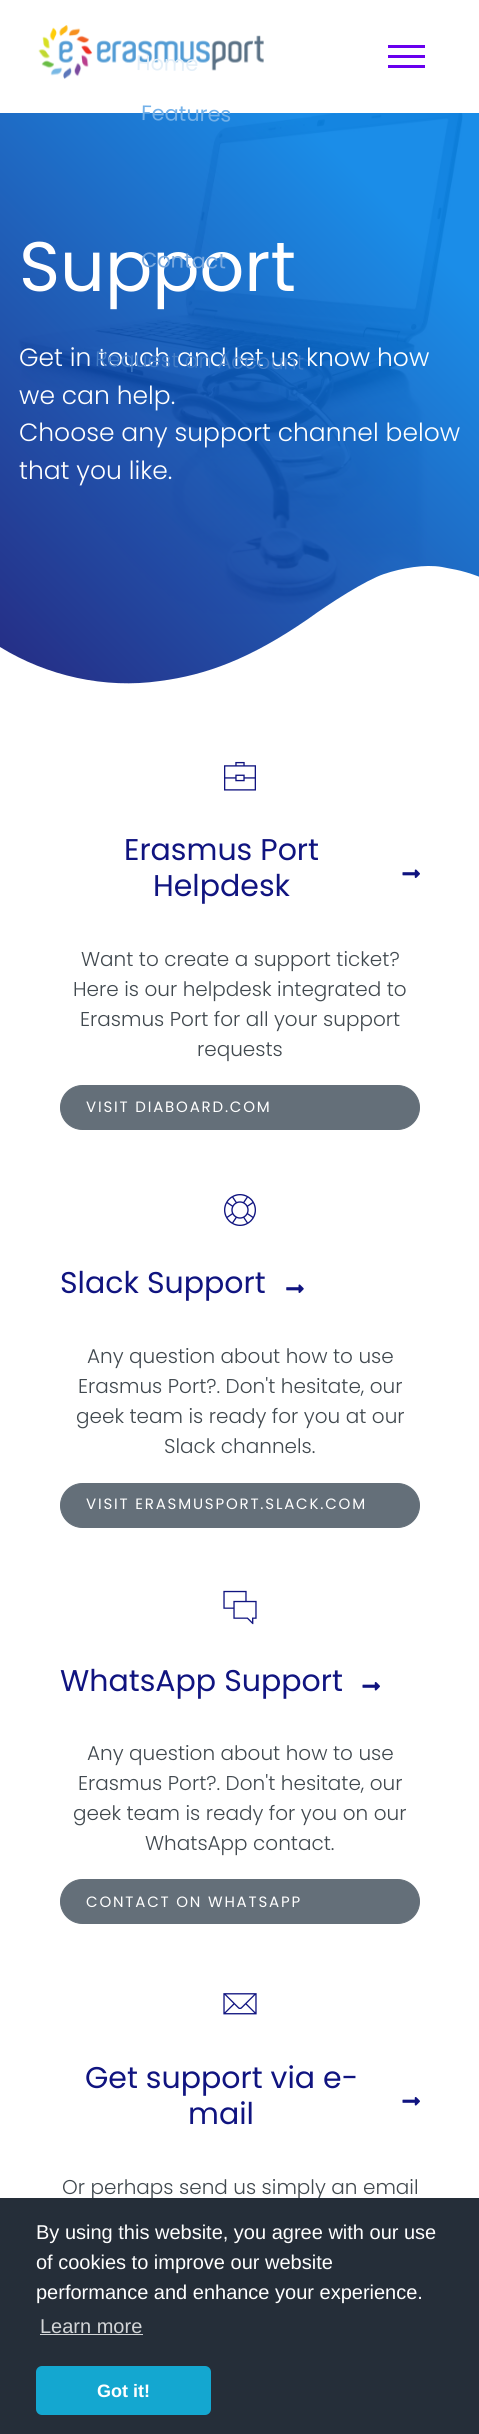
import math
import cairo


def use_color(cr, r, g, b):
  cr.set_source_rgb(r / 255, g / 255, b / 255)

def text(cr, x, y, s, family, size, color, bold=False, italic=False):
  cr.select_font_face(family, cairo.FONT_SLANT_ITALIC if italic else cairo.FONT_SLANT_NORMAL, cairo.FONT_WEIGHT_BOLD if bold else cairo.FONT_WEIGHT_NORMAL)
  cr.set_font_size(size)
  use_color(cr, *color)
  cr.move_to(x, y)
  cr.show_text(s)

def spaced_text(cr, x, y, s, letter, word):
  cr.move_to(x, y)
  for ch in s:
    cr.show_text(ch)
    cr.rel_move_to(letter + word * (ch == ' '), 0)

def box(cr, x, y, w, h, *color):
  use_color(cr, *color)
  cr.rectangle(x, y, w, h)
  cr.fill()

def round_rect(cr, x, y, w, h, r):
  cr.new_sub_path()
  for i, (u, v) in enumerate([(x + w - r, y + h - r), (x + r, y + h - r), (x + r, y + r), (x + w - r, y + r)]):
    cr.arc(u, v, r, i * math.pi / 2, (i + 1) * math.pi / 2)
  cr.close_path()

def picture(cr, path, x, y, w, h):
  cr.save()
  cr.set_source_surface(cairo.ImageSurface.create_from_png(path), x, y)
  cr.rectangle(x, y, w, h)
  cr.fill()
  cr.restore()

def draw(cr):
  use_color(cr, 255, 255, 255)
  cr.paint()
  box(cr, 0, 113, 479, 571, 125, 133, 139)
  picture(cr, "img_01.png", 38, 25, 226, 54)
  box(cr, 388, 45, 37, 3, 104, 0, 238)
  box(cr, 388, 55, 37, 3, 104, 0, 238)
  box(cr, 388, 65, 37, 3, 104, 0, 238)
  picture(cr, "img_02.png", 13, 113, 450, 501)
  gradient = cairo.LinearGradient(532, 52, -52, 637)
  gradient.add_color_stop_rgba(0.25, 0.008, 0.561, 1, 0.8)
  gradient.add_color_stop_rgba(1, 0.063, 0.078, 0.502, 0.8)
  cr.set_source(gradient)
  cr.rectangle(0, 113, 479, 571)
  cr.fill()
  use_color(cr, 255, 255, 255)
  cr.new_path()
  cr.move_to(160, 681)
  cr.curve_to(206, 675, 250, 659, 308, 619)
  cr.curve_to(330, 603, 366, 580, 384, 574)
  cr.curve_to(402, 568, 425, 564, 442, 567)
  cr.curve_to(450, 569, 459, 569, 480, 577)
  cr.curve_to(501, 584, 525, 597, 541, 608)
  cr.curve_to(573, 627, 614, 635, 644, 636)
  cr.curve_to(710, 638, 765, 597, 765, 597)
  cr.line_to(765, 690)
  cr.line_to(0, 690)
  cr.line_to(0, 647)
  cr.curve_to(47, 676, 105, 689, 160, 681)
  cr.close_path()
  cr.fill()
  picture(cr, "img_03.png", 224, 761, 32, 30)
  picture(cr, "img_04.png", 402, 869, 18, 9)
  use_color(cr, 100, 111, 121)
  round_rect(cr, 60.5, 1085.5, 359, 44, 22)
  cr.fill_preserve()
  cr.set_line_width(1)
  cr.stroke()
  picture(cr, "img_05.png", 224, 1194, 32, 32)
  picture(cr, "img_06.png", 286, 1284, 18, 9)
  round_rect(cr, 60.5, 1483.5, 359, 44, 22)
  cr.fill_preserve()
  cr.stroke()
  picture(cr, "img_07.png", 223, 1590, 34, 35)
  picture(cr, "img_08.png", 362, 1682, 18, 9)
  round_rect(cr, 60.5, 1879.5, 359, 44, 22)
  cr.fill_preserve()
  cr.stroke()
  picture(cr, "img_09.png", 223, 1993, 34, 22)
  picture(cr, "img_08.png", 402, 2097, 18, 9)
  cr.save()
  cr.translate(136, 70)
  cr.rotate(1 * math.pi / 180)
  text(cr, 0, 0, "Home", "Poppins", 20.9, (228, 239, 248))
  cr.restore()
  cr.save()
  cr.translate(141, 120)
  cr.rotate(1 * math.pi / 180)
  text(cr, 0, 0, "Features", "Poppins", 20.9, (115, 177, 233))
  cr.restore()
  text(cr, 19, 291, "Support", "Poppins", 70, (255, 255, 255))
  cr.save()
  cr.translate(141, 267)
  cr.rotate(1 * math.pi / 180)
  text(cr, 0, 0, "Contact", "Poppins", 20.9, (121, 169, 223))
  cr.restore()
  text(cr, 19, 366, "Get in touch and let us know how", "Poppins Light", 25, (255, 255, 255))
  cr.save()
  cr.translate(95, 366)
  cr.rotate(1 * math.pi / 180)
  text(cr, 0, 0, "Request an Account", "Poppins Light", 20.9, (68, 125, 198))
  cr.restore()
  text(cr, 19, 404, "we can help.", "Poppins Light", 25, (255, 255, 255))
  text(cr, 19, 441, "Choose any support channel below", "Poppins Light", 25, (255, 255, 255))
  text(cr, 19, 479, "that you like.", "Poppins Light", 25, (255, 255, 255))
  text(cr, 124, 860, "Erasmus Port", "Poppins", 30, (16, 20, 128))
  text(cr, 153, 896, "Helpdesk", "Poppins", 30, (16, 20, 128))
  text(cr, 81, 966, "Want to create a support ticket?", "Poppins Light", 20, (65, 73, 79))
  text(cr, 73, 996, "Here is our helpdesk integrated to", "Poppins Light", 20, (65, 73, 79))
  text(cr, 80, 1026, "Erasmus Port for all your support", "Poppins Light", 20, (65, 73, 79))
  text(cr, 197, 1056, "requests", "Poppins Light", 20, (65, 73, 79))
  cr.select_font_face("Poppins")
  cr.set_font_size(15)
  use_color(cr, 255, 255, 255)
  spaced_text(cr, 86, 1112, "VISIT DIABOARD.COM", 1.8, 0)
  text(cr, 60, 1293, "Slack Support", "Poppins", 30, (16, 20, 128))
  text(cr, 87, 1363, "Any question about how to use", "Poppins Light", 20, (65, 73, 79))
  text(cr, 78, 1393, "Erasmus Port?. Don't hesitate, our", "Poppins Light", 20, (65, 73, 79))
  text(cr, 76, 1423, "geek team is ready for you at our", "Poppins Light", 20, (65, 73, 79))
  text(cr, 164, 1453, "Slack channels.", "Poppins Light", 20, (65, 73, 79))
  cr.select_font_face("Poppins")
  cr.set_font_size(15)
  use_color(cr, 255, 255, 255)
  spaced_text(cr, 86, 1509, "VISIT ERASMUSPORT.SLACK.COM", 1.8, 0)
  text(cr, 60, 1691, "WhatsApp Support", "Poppins", 30, (16, 20, 128))
  text(cr, 87, 1760, "Any question about how to use", "Poppins Light", 20, (65, 73, 79))
  text(cr, 78, 1790, "Erasmus Port?. Don't hesitate, our", "Poppins Light", 20, (65, 73, 79))
  text(cr, 73, 1820, "geek team is ready for you on our", "Poppins Light", 20, (65, 73, 79))
  text(cr, 145, 1850, "WhatsApp contact.", "Poppins Light", 20, (65, 73, 79))
  cr.select_font_face("Poppins")
  cr.set_font_size(15)
  use_color(cr, 255, 255, 255)
  spaced_text(cr, 86, 1907, "CONTACT ON WHATSAPP", 1.8, 0)
  text(cr, 85, 2088, "Get support via e-", "Poppins", 30, (16, 20, 128))
  text(cr, 188, 2124, "mail", "Poppins", 30, (16, 20, 128))
  text(cr, 62, 2194, "Or perhaps send us simply an email", "Poppins Light", 20, (65, 73, 79))
  box(cr, 0, 2198, 479, 236, 37, 46, 57)
  text(cr, 36, 2239, "By using this website, you agree with our use", "Liberation Sans", 20, (255, 255, 255))
  text(cr, 36, 2269, "of cookies to improve our website", "Liberation Sans", 20, (255, 255, 255))
  text(cr, 36, 2299, "performance and enhance your experience.", "Liberation Sans", 20, (255, 255, 255))
  text(cr, 40, 2333, "Learn more", "Liberation Sans", 20, (211, 213, 215))
  box(cr, 40, 2334, 103, 1, 211, 213, 215)
  use_color(cr, 20, 167, 208)
  round_rect(cr, 36, 2366, 175, 49, 6)
  cr.fill()
  text(cr, 97, 2397, "Got it!", "Liberation Sans", 18, (255, 255, 255), bold=True)


surface = cairo.ImageSurface(cairo.FORMAT_RGB24, 479, 2434)
cr = cairo.Context(surface)
options = cairo.FontOptions()
options.set_hint_metrics(cairo.HINT_METRICS_OFF)
options.set_hint_style(cairo.HINT_STYLE_NONE)
cr.set_font_options(options)
cr.set_miter_limit(4)
draw(cr)
surface.write_to_png("out.png")
